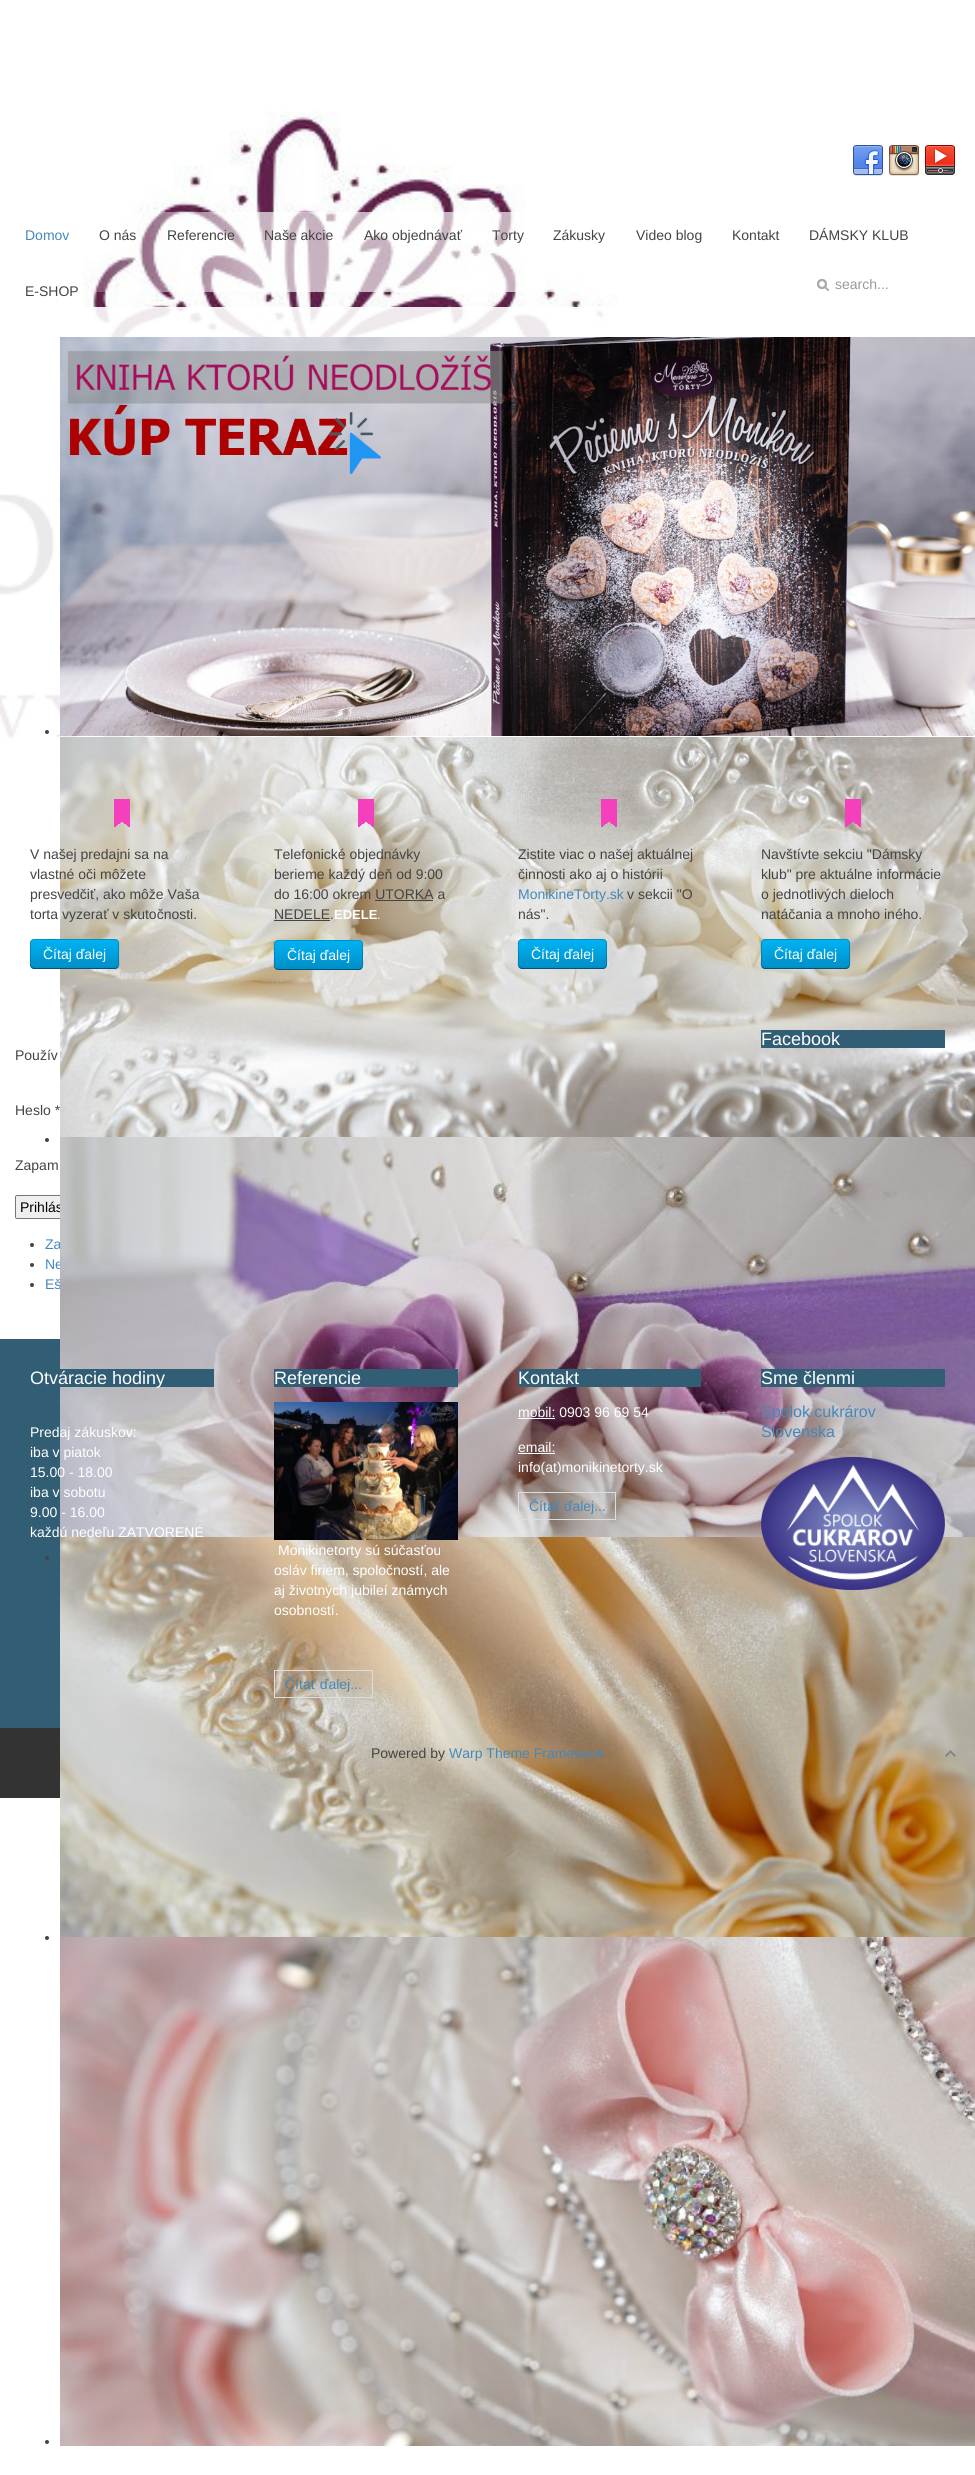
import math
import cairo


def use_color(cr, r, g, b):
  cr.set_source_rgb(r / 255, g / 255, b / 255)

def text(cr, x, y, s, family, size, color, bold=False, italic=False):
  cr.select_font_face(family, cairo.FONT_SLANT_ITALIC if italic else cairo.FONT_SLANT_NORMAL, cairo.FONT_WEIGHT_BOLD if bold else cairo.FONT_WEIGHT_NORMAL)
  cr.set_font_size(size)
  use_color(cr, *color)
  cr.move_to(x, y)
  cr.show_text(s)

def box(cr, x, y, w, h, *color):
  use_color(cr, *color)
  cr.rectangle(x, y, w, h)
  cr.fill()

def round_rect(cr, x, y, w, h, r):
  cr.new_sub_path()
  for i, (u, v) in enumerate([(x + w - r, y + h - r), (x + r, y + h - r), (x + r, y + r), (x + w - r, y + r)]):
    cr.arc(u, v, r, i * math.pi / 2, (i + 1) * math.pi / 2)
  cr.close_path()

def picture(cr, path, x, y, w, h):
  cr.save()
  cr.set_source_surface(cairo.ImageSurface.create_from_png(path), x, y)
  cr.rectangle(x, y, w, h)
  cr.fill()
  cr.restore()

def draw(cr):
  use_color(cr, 255, 255, 255)
  cr.paint()
  picture(cr, "img_01.png", 0, 111, 635, 643)
  picture(cr, "img_02.png", 853, 145, 30, 31)
  picture(cr, "img_03.png", 889, 145, 30, 31)
  picture(cr, "img_04.png", 925, 145, 30, 30)
  gradient = cairo.LinearGradient(15, 252, 960, 252)
  gradient.add_color_stop_rgba(0, 1, 1, 1, 0)
  gradient.add_color_stop_rgba(0.25, 1, 1, 1, 0.65)
  gradient.add_color_stop_rgba(0.75, 1, 1, 1, 0.65)
  gradient.add_color_stop_rgba(1, 1, 1, 1, 0)
  cr.set_source(gradient)
  cr.rectangle(92, 212, 487, 80)
  cr.fill()
  picture(cr, "img_05.png", 817, 279, 12, 12)
  cr.set_source_rgba(1, 1, 1, 0.9)
  cr.rectangle(0, 307, 635, 447)
  cr.fill()
  use_color(cr, 68, 68, 68)
  cr.arc(47, 732, 2, 0, 2 * math.pi)
  cr.fill()
  picture(cr, "img_06.png", 60, 337, 915, 399)
  picture(cr, "img_07.png", 60, 737, 915, 400)
  cr.arc(47, 1140, 2, 0, 2 * math.pi)
  cr.fill()
  box(cr, 0, 1339, 60, 389, 49, 94, 117)
  use_color(cr, 68, 68, 68)
  cr.arc(47, 1558, 2, 0, 2 * math.pi)
  cr.fill()
  picture(cr, "img_09.png", 60, 1537, 915, 400)
  cr.arc(47, 1938, 2, 0, 2 * math.pi)
  cr.fill()
  cr.arc(47, 2442, 2, 0, 2 * math.pi)
  cr.fill()
  picture(cr, "img_10.png", 60, 1937, 915, 509)
  picture(cr, "img_11.png", 114, 799, 16, 28)
  gradient = cairo.LinearGradient(75, 939, 75, 969)
  gradient.add_color_stop_rgba(0, 0, 0.706, 0.961, 1)
  gradient.add_color_stop_rgba(1, 0, 0.553, 0.773, 1)
  cr.set_source(gradient)
  round_rect(cr, 30, 939, 89, 30, 4)
  cr.fill()
  cr.new_path()
  cr.move_to(117.5, 967.5)
  cr.line_to(115.5, 968.5)
  cr.line_to(33.5, 968.5)
  cr.line_to(31.5, 967.5)
  cr.set_source_rgba(0, 0, 0, 0.4)
  cr.set_line_width(1)
  cr.stroke()
  cr.new_path()
  cr.move_to(31.5, 967.5)
  cr.curve_to(29.5, 965.5, 30.5, 957, 30.5, 954)
  cr.curve_to(30.5, 936.5, 28.5, 939.5, 47.5, 939.5)
  cr.line_to(101.5, 939.5)
  cr.curve_to(122.5, 939.5, 118.5, 937, 118.5, 957.5)
  cr.curve_to(118.5, 960.5, 120, 965, 117.5, 967.5)
  cr.set_source_rgba(0, 0, 0, 0.2)
  cr.stroke()
  picture(cr, "img_12.png", 358, 799, 16, 28)
  box(cr, 375, 900, 58, 1, 68, 68, 68)
  box(cr, 274, 920, 56, 1, 68, 68, 68)
  gradient = cairo.LinearGradient(319, 940, 319, 970)
  gradient.add_color_stop_rgba(0, 0, 0.706, 0.961, 1)
  gradient.add_color_stop_rgba(1, 0, 0.553, 0.773, 1)
  cr.set_source(gradient)
  round_rect(cr, 274, 940, 89, 30, 4)
  cr.fill()
  cr.new_path()
  cr.move_to(361.5, 968.5)
  cr.line_to(359.5, 969.5)
  cr.line_to(277.5, 969.5)
  cr.line_to(275.5, 968.5)
  cr.set_source_rgba(0, 0, 0, 0.4)
  cr.stroke()
  cr.new_path()
  cr.move_to(275.5, 968.5)
  cr.curve_to(273, 966, 274.5, 961.5, 274.5, 958.5)
  cr.curve_to(274.5, 938, 270.5, 940.5, 291.5, 940.5)
  cr.line_to(345.5, 940.5)
  cr.curve_to(364.5, 940.5, 362.5, 937.5, 362.5, 955)
  cr.curve_to(362.5, 958, 363.5, 966.5, 361.5, 968.5)
  cr.set_source_rgba(0, 0, 0, 0.2)
  cr.stroke()
  picture(cr, "img_13.png", 601, 799, 16, 28)
  gradient = cairo.LinearGradient(563, 939, 563, 969)
  gradient.add_color_stop_rgba(0, 0, 0.706, 0.961, 1)
  gradient.add_color_stop_rgba(1, 0, 0.553, 0.773, 1)
  cr.set_source(gradient)
  round_rect(cr, 518, 939, 89, 30, 4)
  cr.fill()
  cr.new_path()
  cr.move_to(605.5, 967.5)
  cr.line_to(603.5, 968.5)
  cr.line_to(521.5, 968.5)
  cr.line_to(519.5, 967.5)
  cr.set_source_rgba(0, 0, 0, 0.4)
  cr.stroke()
  cr.new_path()
  cr.move_to(519.5, 967.5)
  cr.curve_to(517, 965, 518.5, 960.5, 518.5, 957.5)
  cr.curve_to(518.5, 937, 514.5, 939.5, 535.5, 939.5)
  cr.line_to(589.5, 939.5)
  cr.curve_to(608.5, 939.5, 606.5, 936.5, 606.5, 954)
  cr.curve_to(606.5, 957, 607.5, 965.5, 605.5, 967.5)
  cr.set_source_rgba(0, 0, 0, 0.2)
  cr.stroke()
  picture(cr, "img_14.png", 845, 799, 16, 28)
  gradient = cairo.LinearGradient(806, 939, 806, 969)
  gradient.add_color_stop_rgba(0, 0, 0.706, 0.961, 1)
  gradient.add_color_stop_rgba(1, 0, 0.553, 0.773, 1)
  cr.set_source(gradient)
  round_rect(cr, 761, 939, 89, 30, 4)
  cr.fill()
  cr.new_path()
  cr.move_to(848.5, 967.5)
  cr.line_to(846.5, 968.5)
  cr.line_to(764.5, 968.5)
  cr.line_to(762.5, 967.5)
  cr.set_source_rgba(0, 0, 0, 0.4)
  cr.stroke()
  cr.new_path()
  cr.move_to(762.5, 967.5)
  cr.curve_to(760, 965, 761.5, 960.5, 761.5, 957.5)
  cr.curve_to(761.5, 937, 757.5, 939.5, 778.5, 939.5)
  cr.line_to(832.5, 939.5)
  cr.curve_to(851.5, 939.5, 849.5, 936.5, 849.5, 954)
  cr.curve_to(849.5, 957, 850.5, 965.5, 848.5, 967.5)
  cr.set_source_rgba(0, 0, 0, 0.2)
  cr.stroke()
  box(cr, 761, 1030, 184, 18, 49, 94, 117)
  box(cr, 761, 1063, 2, 22, 199, 199, 199)
  use_color(cr, 239, 239, 239)
  round_rect(cr, 15.5, 1195.5, 60, 23, 1.5)
  cr.fill_preserve()
  use_color(cr, 118, 118, 118)
  cr.stroke()
  use_color(cr, 68, 68, 68)
  cr.arc(32, 1245, 2, 0, 2 * math.pi)
  cr.fill()
  cr.arc(32, 1265, 2, 0, 2 * math.pi)
  cr.fill()
  cr.arc(32, 1285, 2, 0, 2 * math.pi)
  cr.fill()
  cr.rectangle(274.5, 1670.5, 98, 27)
  use_color(cr, 221, 221, 221)
  cr.stroke()
  box(cr, 0, 1728, 60, 70, 51, 51, 51)
  picture(cr, "img_17.png", 945, 1750, 11, 7)
  text(cr, 25, 240, "Domov", "Liberation Sans", 14, (68, 136, 187))
  text(cr, 99, 240, "O nás", "Liberation Sans", 14, (68, 68, 68))
  text(cr, 167, 240, "Referencie", "Liberation Sans", 14, (68, 68, 68))
  text(cr, 264, 240, "Naše akcie", "Liberation Sans", 14, (68, 68, 68))
  text(cr, 364, 240, "Ako objednávať", "Liberation Sans", 14, (68, 68, 68))
  text(cr, 492, 240, "Torty", "Liberation Sans", 14, (68, 68, 68))
  text(cr, 553, 240, "Zákusky", "Liberation Sans", 14, (68, 68, 68))
  text(cr, 636, 240, "Video blog", "Liberation Sans", 14, (68, 68, 68))
  text(cr, 732, 240, "Kontakt", "Liberation Sans", 14, (68, 68, 68))
  text(cr, 809, 240, "DÁMSKY KLUB", "Liberation Sans", 14, (68, 68, 68))
  text(cr, 25, 296, "E-SHOP", "Liberation Sans", 14, (68, 68, 68))
  text(cr, 835, 289, "search...", "Liberation Sans", 14, (153, 153, 153))
  text(cr, 30, 859, "V našej predajni sa na", "Liberation Sans", 14, (68, 68, 68))
  text(cr, 30, 879, "vlastné oči môžete", "Liberation Sans", 14, (68, 68, 68))
  text(cr, 30, 899, "presvedčiť, ako môže Vaša", "Liberation Sans", 14, (68, 68, 68))
  text(cr, 30, 919, "torta vyzerať v skutočnosti.", "Liberation Sans", 14, (68, 68, 68))
  text(cr, 43, 959, "Čítaj ďalej", "Liberation Sans", 14, (255, 255, 255))
  text(cr, 274, 859, "Telefonické objednávky", "Liberation Sans", 14, (68, 68, 68))
  text(cr, 274, 879, "berieme každý deň od 9:00", "Liberation Sans", 14, (68, 68, 68))
  text(cr, 274, 899, "do 16:00 okrem UTORKA a", "Liberation Sans", 14, (68, 68, 68))
  text(cr, 274, 919, "NEDELE.", "Liberation Sans", 14, (68, 68, 68))
  text(cr, 334, 919, "EDELE", "Liberation Sans", 13, (255, 255, 255), bold=True)
  text(cr, 377, 919, ".", "Liberation Sans", 13, (255, 255, 255))
  text(cr, 287, 960, "Čítaj ďalej", "Liberation Sans", 14, (255, 255, 255))
  text(cr, 518, 859, "Zistite viac o našej aktuálnej", "Liberation Sans", 14, (68, 68, 68))
  text(cr, 518, 879, "činnosti ako aj o histórii", "Liberation Sans", 14, (68, 68, 68))
  text(cr, 518, 899, "MonikineTorty.sk", "Liberation Sans", 14, (68, 136, 187))
  text(cr, 627, 899, "v sekcii \"O", "Liberation Sans", 14, (68, 68, 68))
  text(cr, 518, 919, "nás\".", "Liberation Sans", 14, (68, 68, 68))
  text(cr, 531, 959, "Čítaj ďalej", "Liberation Sans", 14, (255, 255, 255))
  text(cr, 761, 859, "Navštívte sekciu \"Dámsky", "Liberation Sans", 14, (68, 68, 68))
  text(cr, 761, 879, "klub\" pre aktuálne informácie", "Liberation Sans", 14, (68, 68, 68))
  text(cr, 761, 899, "o jednotlivých dieloch", "Liberation Sans", 14, (68, 68, 68))
  text(cr, 761, 919, "natáčania a mnoho iného.", "Liberation Sans", 14, (68, 68, 68))
  text(cr, 774, 959, "Čítaj ďalej", "Liberation Sans", 14, (255, 255, 255))
  text(cr, 761, 1045, "Facebook", "Liberation Sans", 18, (255, 255, 255))
  text(cr, 15, 1060, "Použív", "Liberation Sans", 14, (68, 68, 68))
  text(cr, 15, 1115, "Heslo *", "Liberation Sans", 14, (68, 68, 68))
  text(cr, 15, 1170, "Zapam", "Liberation Sans", 14, (68, 68, 68))
  text(cr, 20, 1212, "Prihlás", "Liberation Sans", 14, (0, 0, 0))
  text(cr, 45, 1249, "Za", "Liberation Sans", 14, (68, 136, 187))
  text(cr, 45, 1269, "Ne", "Liberation Sans", 14, (68, 136, 187))
  text(cr, 45, 1289, "Eš", "Liberation Sans", 14, (68, 136, 187))
  picture(cr, "img_08.png", 60, 1137, 915, 400)
  box(cr, 60, 1369, 154, 18, 49, 94, 117)
  text(cr, 30, 1384, "Otváracie hodiny", "Liberation Sans", 18, (255, 255, 255))
  text(cr, 30, 1437, "Predaj zákuskov:", "Liberation Sans", 14, (255, 255, 255))
  text(cr, 30, 1457, "iba v piatok", "Liberation Sans", 14, (255, 255, 255))
  text(cr, 30, 1477, "15.00 - 18.00", "Liberation Sans", 14, (255, 255, 255))
  text(cr, 30, 1497, "iba v sobotu", "Liberation Sans", 14, (255, 255, 255))
  text(cr, 30, 1517, "9.00 - 16.00", "Liberation Sans", 14, (255, 255, 255))
  text(cr, 30, 1537, "každú nedeľu ZATVORENÉ", "Liberation Sans", 14, (255, 255, 255))
  box(cr, 274, 1369, 184, 18, 49, 94, 117)
  text(cr, 274, 1384, "Referencie", "Liberation Sans", 18, (255, 255, 255))
  picture(cr, "img_15.png", 274, 1402, 184, 138)
  text(cr, 278, 1555, "Monikinetorty sú súčasťou", "Liberation Sans", 14, (255, 255, 255))
  text(cr, 274, 1575, "osláv firiem, spoločností, ale", "Liberation Sans", 14, (255, 255, 255))
  text(cr, 274, 1595, "aj životných jubileí známych", "Liberation Sans", 14, (255, 255, 255))
  text(cr, 274, 1615, "osobností.", "Liberation Sans", 14, (255, 255, 255))
  text(cr, 285, 1689, "Čítať ďalej...", "Liberation Sans", 14, (68, 136, 187))
  box(cr, 518, 1369, 183, 18, 49, 94, 117)
  text(cr, 518, 1384, "Kontakt", "Liberation Sans", 18, (255, 255, 255))
  text(cr, 518, 1417, "mobil: 0903 96 69 54", "Liberation Sans", 14, (255, 255, 255))
  box(cr, 518, 1418, 37, 1, 255, 255, 255)
  text(cr, 518, 1452, "email:", "Liberation Sans", 14, (255, 255, 255))
  box(cr, 518, 1453, 37, 1, 255, 255, 255)
  text(cr, 518, 1472, "info(at)monikinetorty.sk", "Liberation Sans", 14, (255, 255, 255))
  cr.rectangle(518.5, 1492.5, 97, 27)
  use_color(cr, 221, 221, 221)
  cr.stroke()
  text(cr, 529, 1511, "Čítať ďalej...", "Liberation Sans", 14, (68, 136, 187))
  box(cr, 761, 1369, 184, 18, 49, 94, 117)
  text(cr, 761, 1384, "Sme členmi", "Liberation Sans", 18, (255, 255, 255))
  text(cr, 761, 1417, "Spolok cukrárov", "Liberation Sans", 16, (68, 136, 187))
  text(cr, 761, 1437, "Slovenska", "Liberation Sans", 16, (68, 136, 187))
  picture(cr, "img_16.png", 761, 1457, 184, 133)
  text(cr, 371, 1758, "Powered by", "Liberation Sans", 14, (68, 68, 68))
  text(cr, 449, 1758, "Warp Theme Framework", "Liberation Sans", 14, (68, 136, 187))


surface = cairo.ImageSurface(cairo.FORMAT_RGB24, 975, 2475)
cr = cairo.Context(surface)
options = cairo.FontOptions()
options.set_hint_metrics(cairo.HINT_METRICS_OFF)
options.set_hint_style(cairo.HINT_STYLE_NONE)
cr.set_font_options(options)
cr.set_miter_limit(4)
draw(cr)
surface.write_to_png("out.png")
